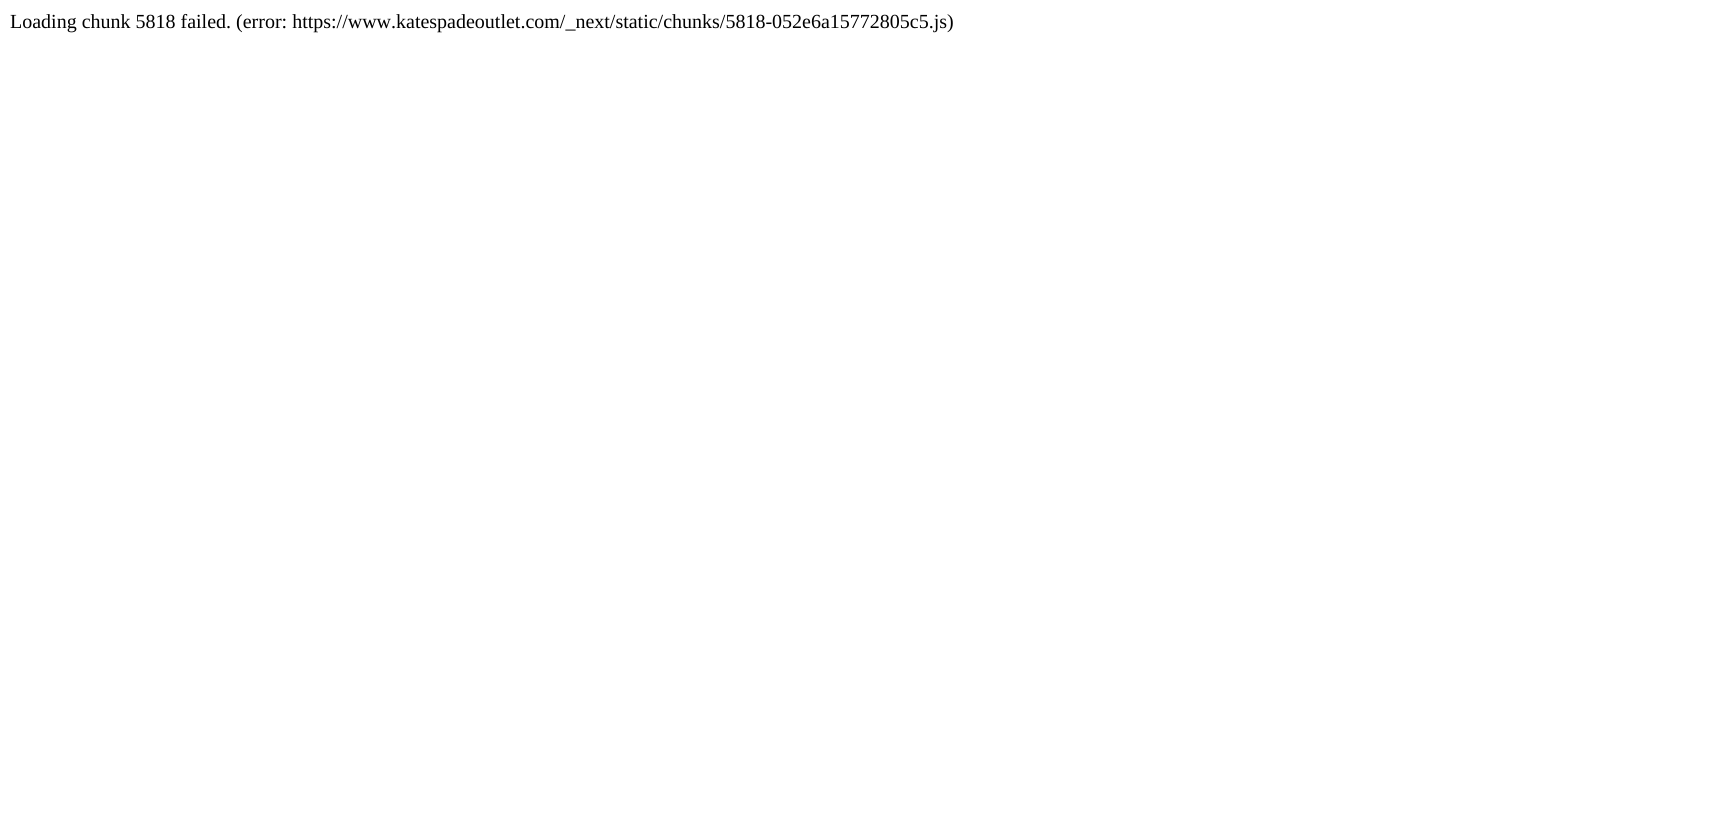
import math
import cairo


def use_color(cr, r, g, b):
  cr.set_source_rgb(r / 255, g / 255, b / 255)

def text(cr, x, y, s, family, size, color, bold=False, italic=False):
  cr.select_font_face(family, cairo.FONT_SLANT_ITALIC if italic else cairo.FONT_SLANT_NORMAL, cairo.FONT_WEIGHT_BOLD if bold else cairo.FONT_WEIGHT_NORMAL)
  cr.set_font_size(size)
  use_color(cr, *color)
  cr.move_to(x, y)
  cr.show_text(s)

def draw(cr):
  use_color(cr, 255, 255, 255)
  cr.paint()
  text(cr, 10, 28, "Loading chunk 5818 failed. (error: https://www.katespadeoutlet.com/_next/static/chunks/5818-052e6a15772805c5.js)", "Liberation Serif", 20, (0, 0, 0))


surface = cairo.ImageSurface(cairo.FORMAT_RGB24, 1733, 824)
cr = cairo.Context(surface)
options = cairo.FontOptions()
options.set_hint_metrics(cairo.HINT_METRICS_OFF)
options.set_hint_style(cairo.HINT_STYLE_NONE)
cr.set_font_options(options)
cr.set_miter_limit(4)
draw(cr)
surface.write_to_png("out.png")
